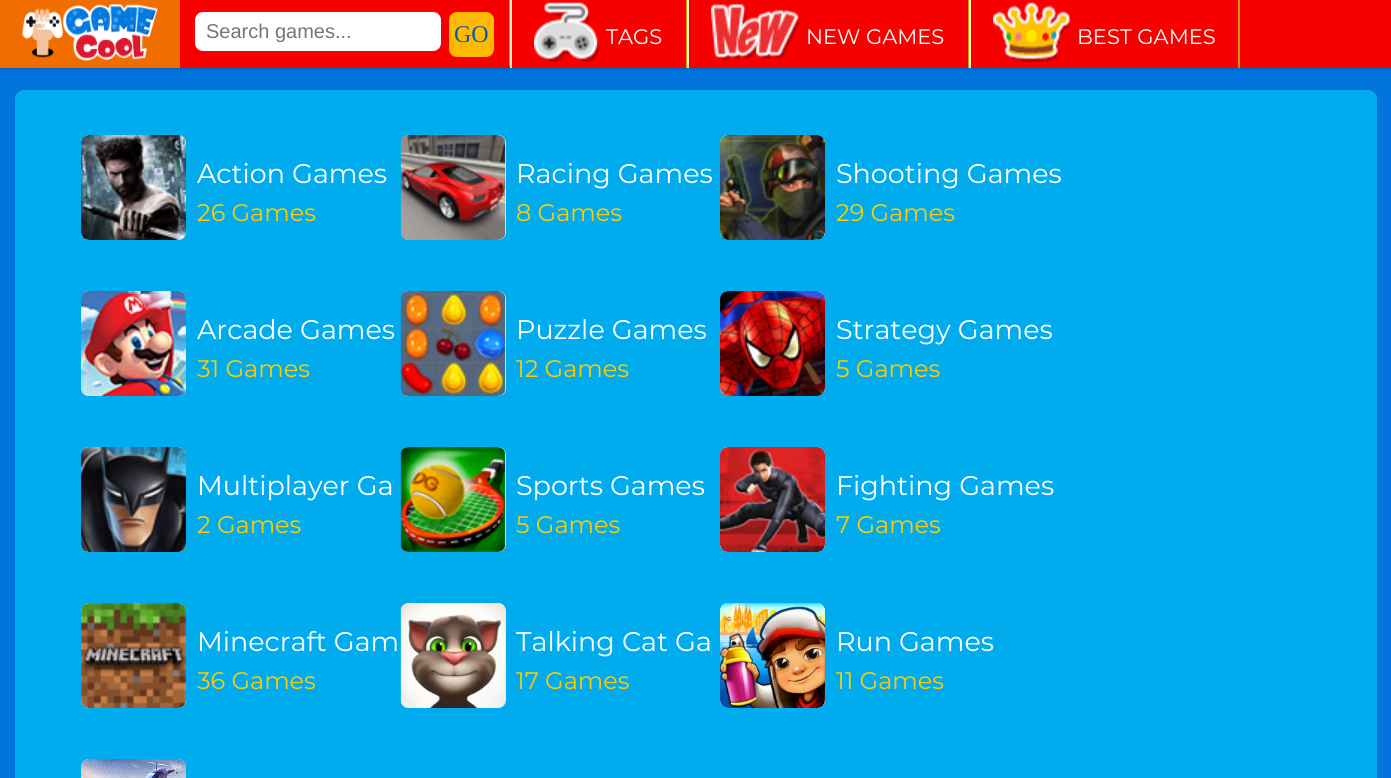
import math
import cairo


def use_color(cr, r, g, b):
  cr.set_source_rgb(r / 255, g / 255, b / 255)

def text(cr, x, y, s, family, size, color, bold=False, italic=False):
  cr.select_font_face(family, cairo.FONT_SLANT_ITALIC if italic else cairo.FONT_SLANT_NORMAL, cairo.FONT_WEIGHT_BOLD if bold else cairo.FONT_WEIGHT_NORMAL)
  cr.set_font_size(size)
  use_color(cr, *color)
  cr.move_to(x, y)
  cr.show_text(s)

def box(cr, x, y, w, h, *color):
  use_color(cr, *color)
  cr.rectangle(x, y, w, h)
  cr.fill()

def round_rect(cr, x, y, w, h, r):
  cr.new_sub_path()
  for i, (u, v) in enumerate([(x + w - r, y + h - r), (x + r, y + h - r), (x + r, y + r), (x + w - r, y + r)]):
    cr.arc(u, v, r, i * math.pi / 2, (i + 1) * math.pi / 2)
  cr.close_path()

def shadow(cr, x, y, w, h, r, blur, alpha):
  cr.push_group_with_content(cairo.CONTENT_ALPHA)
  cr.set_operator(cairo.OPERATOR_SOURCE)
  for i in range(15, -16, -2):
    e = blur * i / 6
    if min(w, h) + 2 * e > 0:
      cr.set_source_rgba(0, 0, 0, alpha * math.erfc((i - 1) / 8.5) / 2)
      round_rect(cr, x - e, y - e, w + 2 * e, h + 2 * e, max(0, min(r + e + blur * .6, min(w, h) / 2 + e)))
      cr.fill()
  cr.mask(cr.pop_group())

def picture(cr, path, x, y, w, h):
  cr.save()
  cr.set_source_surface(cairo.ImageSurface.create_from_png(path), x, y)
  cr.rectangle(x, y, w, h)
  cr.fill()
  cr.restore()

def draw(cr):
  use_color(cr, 0, 115, 221)
  cr.paint()
  use_color(cr, 0, 0, 0)
  shadow(cr, 0, 2, 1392, 67, 0, 1.5, 0.2)
  box(cr, 180, 0, 1211, 68, 247, 0, 0)
  box(cr, 0, 0, 180, 68, 240, 110, 0)
  picture(cr, "img_01.png", 22, 4, 136, 57)
  box(cr, 509, 0, 1, 66, 195, 157, 3)
  use_color(cr, 255, 255, 255)
  round_rect(cr, 195, 12, 246, 39, 8)
  cr.fill()
  use_color(cr, 255, 186, 0)
  round_rect(cr, 449, 12, 45, 45, 8)
  cr.fill()
  box(cr, 686, 0, 1, 68, 195, 157, 3)
  box(cr, 510, 0, 2, 68, 255, 242, 189)
  picture(cr, "img_02.png", 534, 2, 65, 60)
  box(cr, 968, 0, 1, 68, 195, 157, 3)
  box(cr, 687, 0, 2, 68, 255, 242, 189)
  picture(cr, "img_03.png", 711, 3, 89, 58)
  box(cr, 1238, 0, 2, 68, 195, 157, 3)
  box(cr, 969, 0, 2, 68, 255, 242, 189)
  picture(cr, "img_04.png", 993, 2, 77, 60)
  use_color(cr, 0, 172, 238)
  round_rect(cr, 15, 90, 1362, 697, 9)
  cr.fill()
  use_color(cr, 208, 242, 255)
  round_rect(cr, 81, 135, 105, 105, 8)
  cr.fill()
  picture(cr, "img_05.png", 81, 135, 105, 105)
  round_rect(cr, 401, 135, 105, 105, 8)
  cr.fill()
  picture(cr, "img_06.png", 400, 135, 106, 105)
  round_rect(cr, 720, 135, 105, 105, 8)
  cr.fill()
  picture(cr, "img_07.png", 720, 135, 105, 105)
  round_rect(cr, 81, 291, 105, 105, 8)
  cr.fill()
  picture(cr, "img_08.png", 81, 291, 105, 105)
  round_rect(cr, 401, 291, 105, 105, 8)
  cr.fill()
  picture(cr, "img_09.png", 400, 291, 106, 105)
  round_rect(cr, 720, 291, 105, 105, 8)
  cr.fill()
  picture(cr, "img_10.png", 720, 291, 105, 105)
  round_rect(cr, 81, 447, 105, 105, 8)
  cr.fill()
  picture(cr, "img_11.png", 81, 447, 105, 105)
  round_rect(cr, 401, 447, 105, 105, 8)
  cr.fill()
  picture(cr, "img_12.png", 400, 447, 106, 105)
  round_rect(cr, 720, 447, 105, 105, 8)
  cr.fill()
  picture(cr, "img_13.png", 720, 447, 105, 105)
  round_rect(cr, 81, 603, 105, 105, 8)
  cr.fill()
  picture(cr, "img_14.png", 81, 603, 105, 105)
  round_rect(cr, 401, 603, 105, 105, 8)
  cr.fill()
  picture(cr, "img_15.png", 400, 603, 106, 105)
  round_rect(cr, 720, 603, 105, 105, 8)
  cr.fill()
  picture(cr, "img_16.png", 720, 603, 105, 105)
  round_rect(cr, 81, 759, 105, 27, 8)
  cr.fill()
  picture(cr, "img_17.png", 81, 759, 105, 19)
  text(cr, 206, 38, "Search games...", "Liberation Sans", 20, (117, 117, 117))
  text(cr, 454, 42, "GO", "Liberation Serif", 24, (2, 92, 174))
  text(cr, 606, 44, "TAGS", "Montserrat", 21, (255, 255, 255))
  text(cr, 806, 44, "NEW GAMES", "Montserrat", 21, (255, 255, 255))
  text(cr, 1077, 44, "BEST GAMES", "Montserrat", 21, (255, 255, 255))
  text(cr, 197, 183, "Action Games", "Montserrat", 27, (255, 255, 255))
  text(cr, 197, 221, "26 Games", "Montserrat", 24, (255, 204, 0))
  text(cr, 516, 183, "Racing Games", "Montserrat", 27, (255, 255, 255))
  text(cr, 516, 221, "8 Games", "Montserrat", 24, (255, 204, 0))
  text(cr, 836, 183, "Shooting Games", "Montserrat", 27, (255, 255, 255))
  text(cr, 836, 221, "29 Games", "Montserrat", 24, (255, 204, 0))
  text(cr, 197, 339, "Arcade Games", "Montserrat", 27, (255, 255, 255))
  text(cr, 197, 377, "31 Games", "Montserrat", 24, (255, 204, 0))
  text(cr, 516, 339, "Puzzle Games", "Montserrat", 27, (255, 255, 255))
  text(cr, 516, 377, "12 Games", "Montserrat", 24, (255, 204, 0))
  text(cr, 836, 339, "Strategy Games", "Montserrat", 27, (255, 255, 255))
  text(cr, 836, 377, "5 Games", "Montserrat", 24, (255, 204, 0))
  text(cr, 197, 495, "Multiplayer Ga", "Montserrat", 27, (255, 255, 255))
  text(cr, 197, 533, "2 Games", "Montserrat", 24, (255, 204, 0))
  text(cr, 516, 495, "Sports Games", "Montserrat", 27, (255, 255, 255))
  text(cr, 516, 533, "5 Games", "Montserrat", 24, (255, 204, 0))
  text(cr, 836, 495, "Fighting Games", "Montserrat", 27, (255, 255, 255))
  text(cr, 836, 533, "7 Games", "Montserrat", 24, (255, 204, 0))
  text(cr, 197, 651, "Minecraft Gam", "Montserrat", 27, (255, 255, 255))
  text(cr, 197, 689, "36 Games", "Montserrat", 24, (255, 204, 0))
  text(cr, 516, 651, "Talking Cat Ga", "Montserrat", 27, (255, 255, 255))
  text(cr, 516, 689, "17 Games", "Montserrat", 24, (255, 204, 0))
  text(cr, 836, 651, "Run Games", "Montserrat", 27, (255, 255, 255))
  text(cr, 836, 689, "11 Games", "Montserrat", 24, (255, 204, 0))


surface = cairo.ImageSurface(cairo.FORMAT_RGB24, 1391, 778)
cr = cairo.Context(surface)
options = cairo.FontOptions()
options.set_hint_metrics(cairo.HINT_METRICS_OFF)
options.set_hint_style(cairo.HINT_STYLE_NONE)
cr.set_font_options(options)
cr.set_miter_limit(4)
draw(cr)
surface.write_to_png("out.png")
